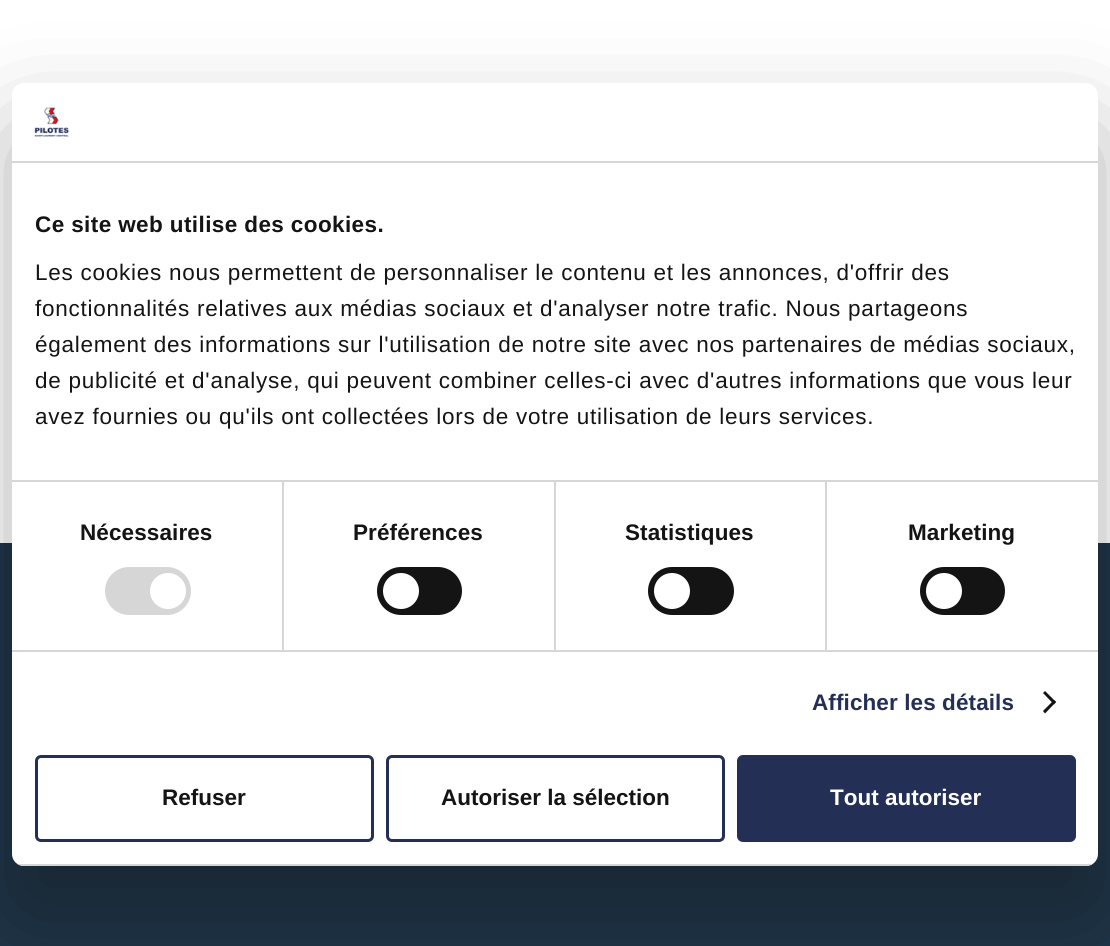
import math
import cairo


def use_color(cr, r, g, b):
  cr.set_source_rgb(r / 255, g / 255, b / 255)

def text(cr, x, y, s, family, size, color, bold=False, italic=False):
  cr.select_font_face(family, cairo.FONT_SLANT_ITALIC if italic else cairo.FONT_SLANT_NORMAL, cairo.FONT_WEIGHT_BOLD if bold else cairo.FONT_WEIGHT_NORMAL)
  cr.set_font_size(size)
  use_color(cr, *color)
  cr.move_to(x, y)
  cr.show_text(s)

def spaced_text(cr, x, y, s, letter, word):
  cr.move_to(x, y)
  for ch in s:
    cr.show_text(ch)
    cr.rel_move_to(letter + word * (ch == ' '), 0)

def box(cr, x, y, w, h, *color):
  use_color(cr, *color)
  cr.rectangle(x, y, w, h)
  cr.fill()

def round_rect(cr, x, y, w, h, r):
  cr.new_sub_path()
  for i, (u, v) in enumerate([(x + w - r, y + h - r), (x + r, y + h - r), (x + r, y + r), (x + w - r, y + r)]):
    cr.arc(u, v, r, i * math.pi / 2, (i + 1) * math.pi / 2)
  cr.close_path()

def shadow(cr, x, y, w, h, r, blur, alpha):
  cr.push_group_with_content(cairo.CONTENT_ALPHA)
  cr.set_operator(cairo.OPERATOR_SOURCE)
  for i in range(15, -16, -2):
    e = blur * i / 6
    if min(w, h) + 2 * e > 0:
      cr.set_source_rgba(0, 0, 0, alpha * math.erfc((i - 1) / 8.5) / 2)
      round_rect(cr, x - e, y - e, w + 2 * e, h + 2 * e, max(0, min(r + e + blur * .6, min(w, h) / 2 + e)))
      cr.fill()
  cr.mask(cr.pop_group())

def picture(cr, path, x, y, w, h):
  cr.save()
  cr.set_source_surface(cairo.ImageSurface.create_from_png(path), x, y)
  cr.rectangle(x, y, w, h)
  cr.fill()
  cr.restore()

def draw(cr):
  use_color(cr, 255, 255, 255)
  cr.paint()
  box(cr, 0, 543, 1110, 403, 32, 53, 72)
  use_color(cr, 0, 0, 0)
  shadow(cr, 12, 131, 1086, 783, 12, 51, 0.3)
  use_color(cr, 255, 255, 255)
  round_rect(cr, 12, 83, 1086, 783, 12)
  cr.fill()
  box(cr, 12, 161, 1086, 2, 214, 214, 214)
  picture(cr, "img_01.png", 34, 107, 35, 30)
  box(cr, 12, 480, 1086, 2, 214, 214, 214)
  box(cr, 12, 650, 1086, 2, 214, 214, 214)
  box(cr, 282, 482, 2, 168, 214, 214, 214)
  round_rect(cr, 105, 567, 86, 48, 24)
  cr.fill()
  use_color(cr, 255, 255, 255)
  cr.arc(168, 591, 18, 0, 2 * math.pi)
  cr.fill()
  box(cr, 554, 482, 2, 168, 214, 214, 214)
  use_color(cr, 20, 20, 20)
  round_rect(cr, 377, 567, 85, 48, 24)
  cr.fill()
  use_color(cr, 255, 255, 255)
  cr.arc(401, 591, 18, 0, 2 * math.pi)
  cr.fill()
  box(cr, 825, 482, 2, 168, 214, 214, 214)
  use_color(cr, 20, 20, 20)
  round_rect(cr, 648, 567, 86, 48, 24)
  cr.fill()
  use_color(cr, 255, 255, 255)
  cr.arc(672, 591, 18, 0, 2 * math.pi)
  cr.fill()
  use_color(cr, 20, 20, 20)
  round_rect(cr, 920, 567, 85, 48, 24)
  cr.fill()
  use_color(cr, 255, 255, 255)
  cr.arc(944, 591, 18, 0, 2 * math.pi)
  cr.fill()
  use_color(cr, 20, 20, 20)
  cr.new_path()
  cr.move_to(1045, 691)
  cr.line_to(1056, 702)
  cr.line_to(1054, 704.5)
  cr.line_to(1043, 693)
  cr.close_path()
  cr.fill()
  cr.new_path()
  cr.move_to(1054, 700)
  cr.line_to(1056, 702)
  cr.line_to(1045, 713.5)
  cr.line_to(1043, 711)
  cr.close_path()
  cr.fill()
  cr.save()
  round_rect(cr, 12, 83, 1086, 783, 12)
  cr.clip()
  box(cr, 12, 864, 1086, 2, 214, 214, 214)
  cr.restore()
  round_rect(cr, 36.5, 756.5, 336, 84, 4.5)
  use_color(cr, 36, 47, 85)
  cr.set_line_width(3)
  cr.stroke()
  round_rect(cr, 387.5, 756.5, 336, 84, 4.5)
  cr.stroke()
  round_rect(cr, 738.5, 756.5, 336, 84, 4.5)
  cr.fill_preserve()
  cr.stroke()
  cr.select_font_face("Liberation Sans", cairo.FONT_SLANT_NORMAL, cairo.FONT_WEIGHT_BOLD)
  cr.set_font_size(22.5)
  use_color(cr, 20, 20, 20)
  spaced_text(cr, 35, 232, "Ce site web utilise des cookies.", 0.4, 0)
  cr.select_font_face("Liberation Sans")
  spaced_text(cr, 35, 280, "Les cookies nous permettent de personnaliser le contenu et les annonces, d'offrir des", 0.75, 0)
  spaced_text(cr, 35, 316, "fonctionnalités relatives aux médias sociaux et d'analyser notre trafic. Nous partageons", 0.75, 0)
  spaced_text(cr, 35, 352, "également des informations sur l'utilisation de notre site avec nos partenaires de médias sociaux,", 0.75, 0)
  spaced_text(cr, 35, 388, "de publicité et d'analyse, qui peuvent combiner celles-ci avec d'autres informations que vous leur", 0.75, 0)
  spaced_text(cr, 35, 424, "avez fournies ou qu'ils ont collectées lors de votre utilisation de leurs services.", 0.75, 0)
  cr.select_font_face("Liberation Sans", cairo.FONT_SLANT_NORMAL, cairo.FONT_WEIGHT_BOLD)
  spaced_text(cr, 80, 540, "Nécessaires", 0.1, 0)
  spaced_text(cr, 353, 540, "Préférences", 0.1, 0)
  spaced_text(cr, 625, 540, "Statistiques", 0.1, 0)
  spaced_text(cr, 908, 540, "Marketing", 0.1, 0)
  use_color(cr, 36, 47, 85)
  spaced_text(cr, 812, 710, "Afficher les détails", 0.1, 0)
  text(cr, 162, 805, "Refuser", "Liberation Sans", 22.5, (20, 20, 20), bold=True)
  text(cr, 441, 805, "Autoriser la sélection", "Liberation Sans", 22.5, (20, 20, 20), bold=True)
  text(cr, 830, 805, "Tout autoriser", "Liberation Sans", 22.5, (255, 255, 255), bold=True)


surface = cairo.ImageSurface(cairo.FORMAT_RGB24, 1110, 946)
cr = cairo.Context(surface)
options = cairo.FontOptions()
options.set_hint_metrics(cairo.HINT_METRICS_OFF)
options.set_hint_style(cairo.HINT_STYLE_NONE)
cr.set_font_options(options)
cr.set_miter_limit(4)
draw(cr)
surface.write_to_png("out.png")
